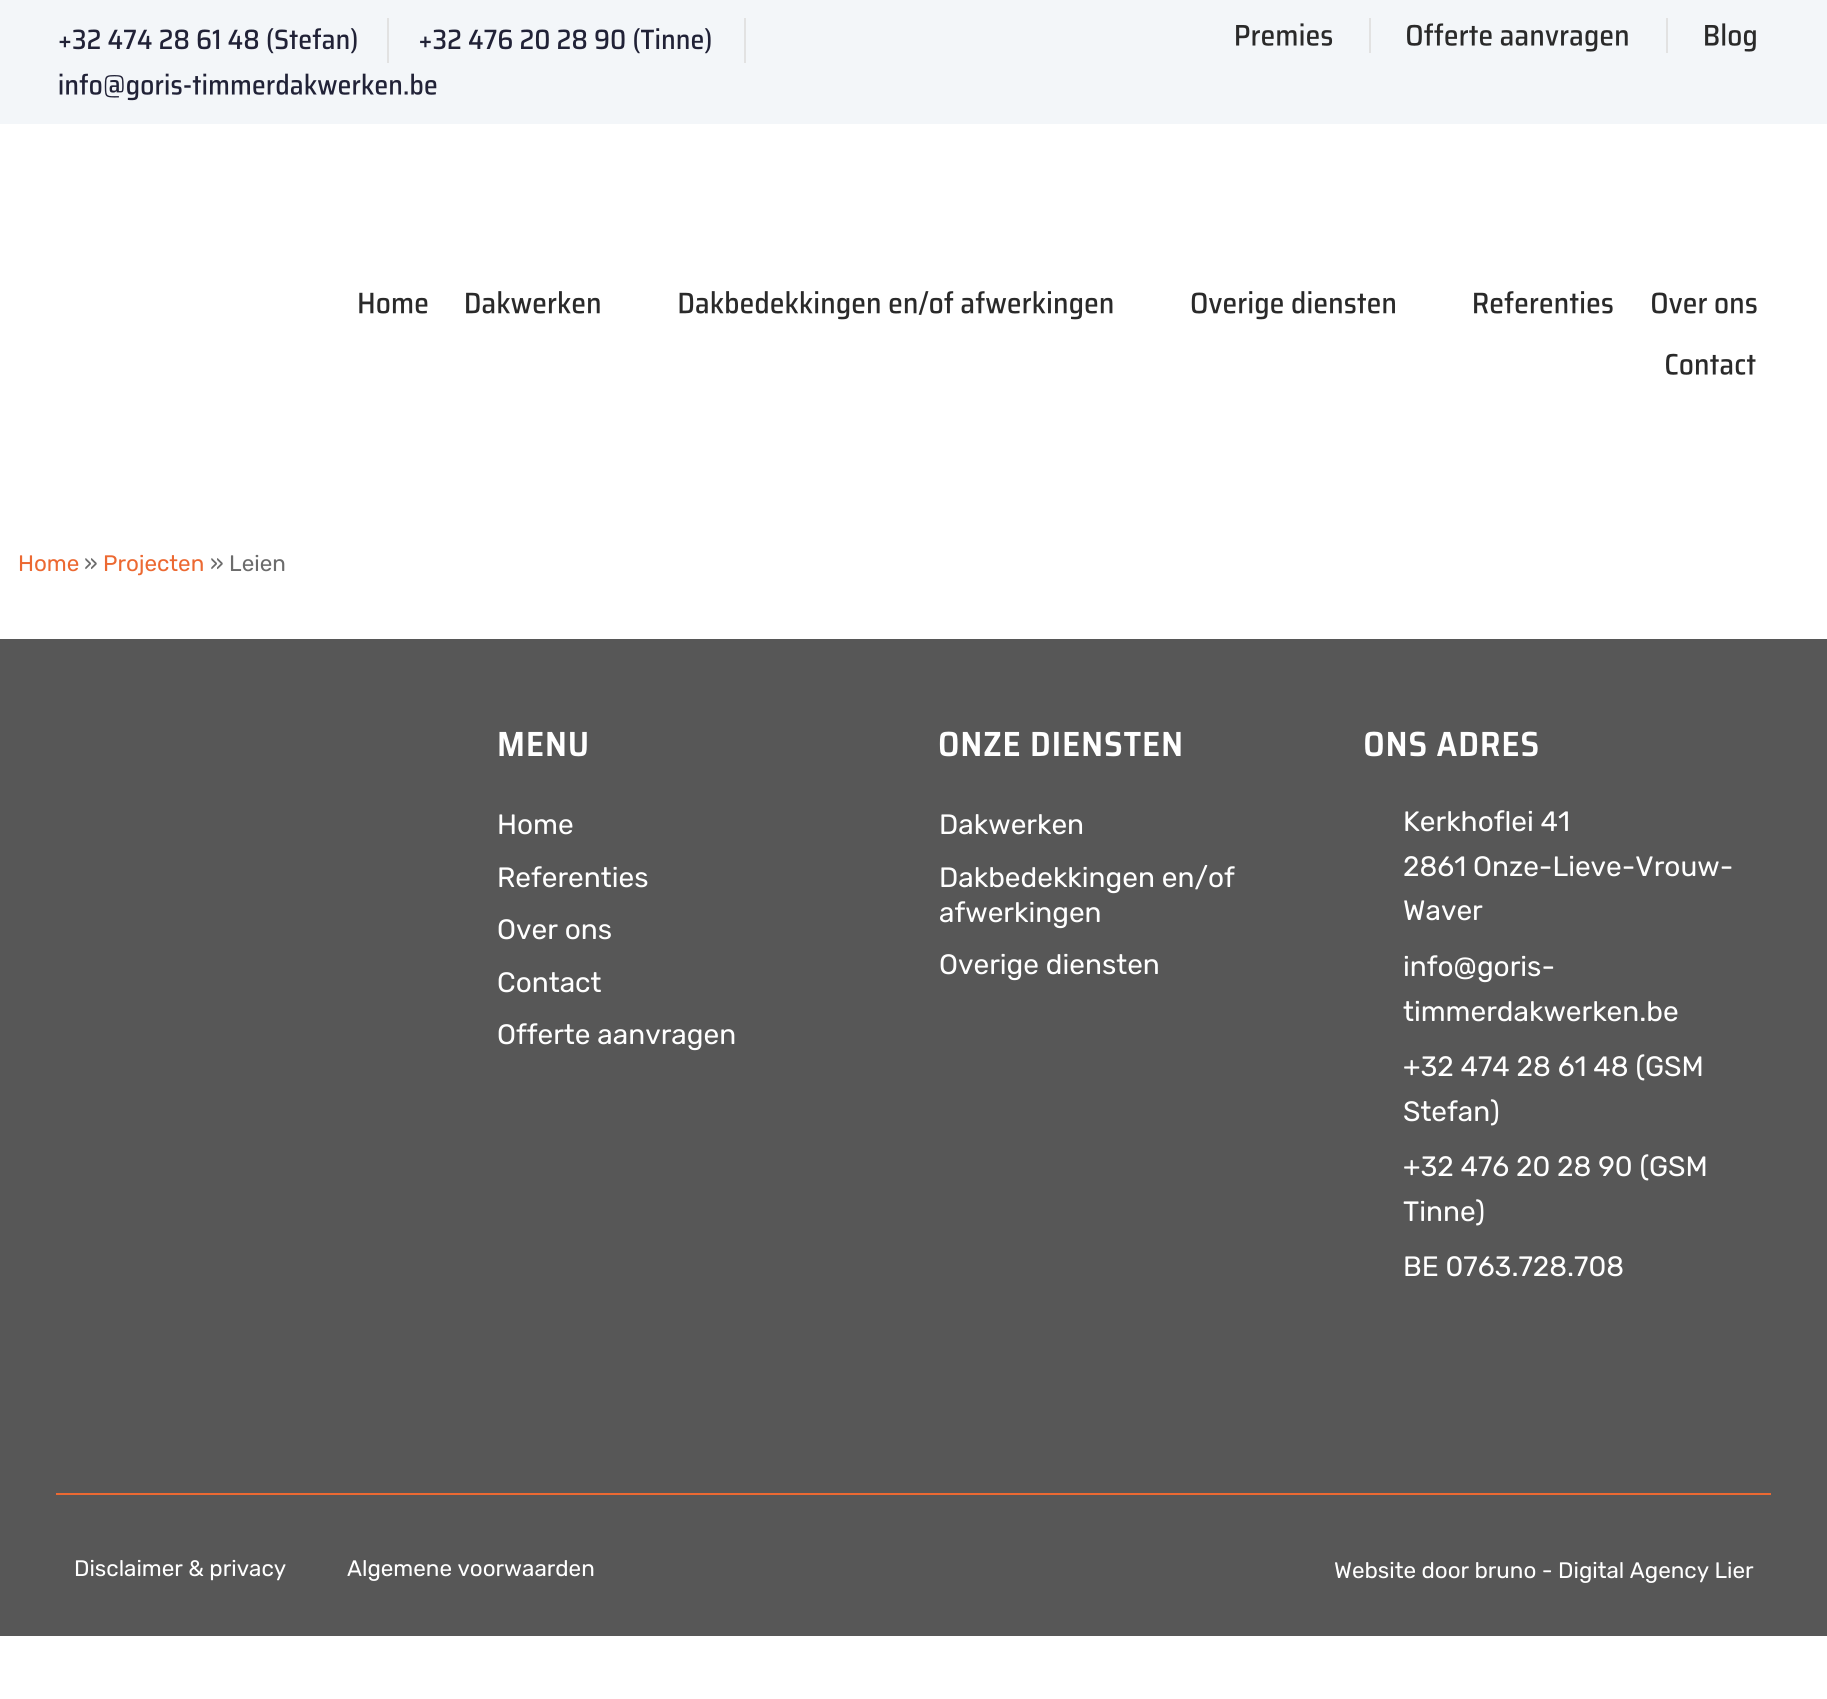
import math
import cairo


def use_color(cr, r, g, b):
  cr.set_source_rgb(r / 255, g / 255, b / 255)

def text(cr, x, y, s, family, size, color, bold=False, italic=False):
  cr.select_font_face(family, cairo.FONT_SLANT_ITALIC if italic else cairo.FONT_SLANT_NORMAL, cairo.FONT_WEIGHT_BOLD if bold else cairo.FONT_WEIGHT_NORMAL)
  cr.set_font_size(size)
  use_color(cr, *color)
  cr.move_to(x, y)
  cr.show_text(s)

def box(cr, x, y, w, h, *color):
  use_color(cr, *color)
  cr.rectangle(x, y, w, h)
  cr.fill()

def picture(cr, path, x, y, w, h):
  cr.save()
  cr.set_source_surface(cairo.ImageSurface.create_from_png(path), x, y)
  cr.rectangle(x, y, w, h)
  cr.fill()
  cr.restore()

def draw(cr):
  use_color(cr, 255, 255, 255)
  cr.paint()
  box(cr, 0, 0, 1827, 124, 243, 246, 249)
  picture(cr, "img_01.png", 59, 28, 298, 26)
  box(cr, 387, 18, 2, 45, 226, 226, 226)
  picture(cr, "img_02.png", 420, 28, 291, 26)
  box(cr, 744, 18, 2, 45, 226, 226, 226)
  picture(cr, "img_03.png", 59, 73, 378, 28)
  box(cr, 1369, 18, 2, 35, 226, 226, 226)
  picture(cr, "img_04.png", 1236, 23, 97, 23)
  box(cr, 1666, 18, 2, 35, 226, 226, 226)
  picture(cr, "img_05.png", 1407, 23, 221, 29)
  picture(cr, "img_06.png", 1705, 23, 51, 29)
  picture(cr, "img_07.png", 359, 292, 69, 22)
  picture(cr, "img_08.png", 466, 291, 134, 23)
  picture(cr, "img_09.png", 679, 291, 434, 29)
  picture(cr, "img_10.png", 1191, 291, 204, 29)
  picture(cr, "img_11.png", 1474, 291, 139, 23)
  picture(cr, "img_12.png", 1652, 292, 105, 22)
  picture(cr, "img_13.png", 1666, 353, 90, 22)
  box(cr, 0, 639, 1827, 997, 87, 87, 87)
  picture(cr, "img_14.png", 499, 731, 88, 26)
  picture(cr, "img_15.png", 939, 731, 242, 26)
  picture(cr, "img_16.png", 1365, 731, 173, 26)
  box(cr, 56, 1493, 1715, 2, 236, 105, 50)
  text(cr, 18, 571, "Home", "Rubik", 22.4, (236, 105, 50))
  text(cr, 84, 571, "»", "Rubik", 22.4, (108, 108, 108))
  text(cr, 103, 571, "Projecten", "Rubik", 22.4, (236, 105, 50))
  text(cr, 210, 571, "» Leien", "Rubik", 22.4, (108, 108, 108))
  text(cr, 497, 834, "Home", "Rubik", 28, (255, 255, 255))
  text(cr, 497, 887, "Referenties", "Rubik", 28, (255, 255, 255))
  text(cr, 497, 939, "Over ons", "Rubik", 28, (255, 255, 255))
  text(cr, 497, 992, "Contact", "Rubik", 28, (255, 255, 255))
  text(cr, 497, 1044, "Offerte aanvragen", "Rubik", 28, (255, 255, 255))
  text(cr, 939, 834, "Dakwerken", "Rubik", 28, (255, 255, 255))
  text(cr, 939, 887, "Dakbedekkingen en/of", "Rubik", 28, (255, 255, 255))
  text(cr, 939, 922, "afwerkingen", "Rubik", 28, (255, 255, 255))
  text(cr, 939, 974, "Overige diensten", "Rubik", 28, (255, 255, 255))
  text(cr, 1403, 831, "Kerkhoflei 41", "Rubik", 28, (255, 255, 255))
  text(cr, 1403, 876, "2861 Onze-Lieve-Vrouw-", "Rubik", 28, (255, 255, 255))
  text(cr, 1403, 920, "Waver", "Rubik", 28, (255, 255, 255))
  text(cr, 1403, 976, "info@goris-", "Rubik", 28, (255, 255, 255))
  text(cr, 1403, 1021, "timmerdakwerken.be", "Rubik", 28, (255, 255, 255))
  text(cr, 1403, 1076, "+32 474 28 61 48 (GSM", "Rubik", 28, (255, 255, 255))
  text(cr, 1403, 1121, "Stefan)", "Rubik", 28, (255, 255, 255))
  text(cr, 1403, 1176, "+32 476 20 28 90 (GSM", "Rubik", 28, (255, 255, 255))
  text(cr, 1403, 1221, "Tinne)", "Rubik", 28, (255, 255, 255))
  text(cr, 1403, 1276, "BE 0763.728.708", "Rubik", 28, (255, 255, 255))
  text(cr, 74, 1576, "Disclaimer & privacy", "Rubik", 22.4, (255, 255, 255))
  text(cr, 347, 1576, "Algemene voorwaarden", "Rubik", 22.4, (255, 255, 255))
  text(cr, 1334, 1578, "Website door bruno - Digital Agency Lier", "Rubik", 22.4, (255, 255, 255))


surface = cairo.ImageSurface(cairo.FORMAT_RGB24, 1827, 1699)
cr = cairo.Context(surface)
options = cairo.FontOptions()
options.set_hint_metrics(cairo.HINT_METRICS_OFF)
options.set_hint_style(cairo.HINT_STYLE_NONE)
cr.set_font_options(options)
cr.set_miter_limit(4)
draw(cr)
surface.write_to_png("out.png")
